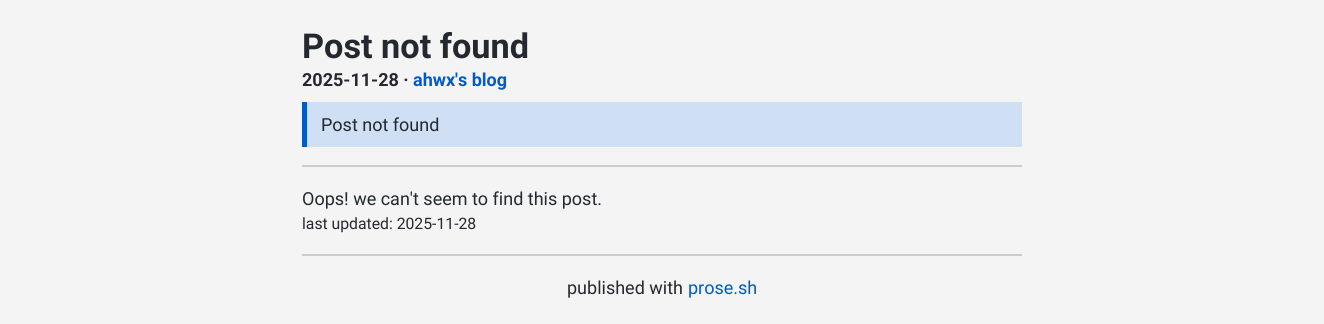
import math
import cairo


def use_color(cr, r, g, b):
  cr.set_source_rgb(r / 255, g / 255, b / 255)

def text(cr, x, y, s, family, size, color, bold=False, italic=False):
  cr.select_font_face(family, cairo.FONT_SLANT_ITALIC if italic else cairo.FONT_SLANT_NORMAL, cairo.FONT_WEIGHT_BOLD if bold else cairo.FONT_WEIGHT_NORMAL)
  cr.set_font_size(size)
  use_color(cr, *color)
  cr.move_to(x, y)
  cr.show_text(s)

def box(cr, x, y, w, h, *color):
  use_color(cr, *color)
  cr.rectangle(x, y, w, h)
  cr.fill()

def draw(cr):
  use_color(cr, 244, 244, 244)
  cr.paint()
  box(cr, 307, 102, 715, 45, 207, 224, 244)
  box(cr, 302, 102, 5, 45, 0, 92, 197)
  box(cr, 302, 165, 720, 2, 204, 204, 204)
  box(cr, 302, 254, 720, 2, 204, 204, 204)
  text(cr, 302, 58, "Post not found", "Roboto", 34.25, (36, 41, 47), bold=True)
  text(cr, 302, 86, "2025-11-28 ·", "Roboto", 18, (36, 41, 47), bold=True)
  text(cr, 413, 86, "ahwx's blog", "Roboto", 18, (0, 92, 197), bold=True)
  text(cr, 321, 131, "Post not found", "Roboto", 18, (36, 41, 47))
  text(cr, 302, 205, "Oops! we can't seem to find this post.", "Roboto", 18, (36, 41, 47))
  text(cr, 302, 229, "last updated: 2025-11-28", "Roboto", 15.75, (36, 41, 47))
  text(cr, 567, 294, "published with", "Roboto", 18, (36, 41, 47))
  text(cr, 688, 294, "prose.sh", "Roboto", 18, (0, 92, 197))


surface = cairo.ImageSurface(cairo.FORMAT_RGB24, 1324, 324)
cr = cairo.Context(surface)
options = cairo.FontOptions()
options.set_hint_metrics(cairo.HINT_METRICS_OFF)
options.set_hint_style(cairo.HINT_STYLE_NONE)
cr.set_font_options(options)
cr.set_miter_limit(4)
draw(cr)
surface.write_to_png("out.png")
